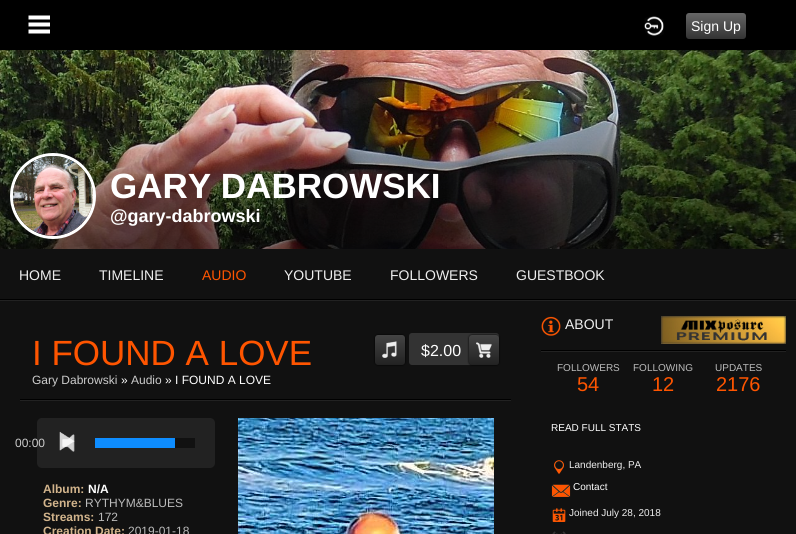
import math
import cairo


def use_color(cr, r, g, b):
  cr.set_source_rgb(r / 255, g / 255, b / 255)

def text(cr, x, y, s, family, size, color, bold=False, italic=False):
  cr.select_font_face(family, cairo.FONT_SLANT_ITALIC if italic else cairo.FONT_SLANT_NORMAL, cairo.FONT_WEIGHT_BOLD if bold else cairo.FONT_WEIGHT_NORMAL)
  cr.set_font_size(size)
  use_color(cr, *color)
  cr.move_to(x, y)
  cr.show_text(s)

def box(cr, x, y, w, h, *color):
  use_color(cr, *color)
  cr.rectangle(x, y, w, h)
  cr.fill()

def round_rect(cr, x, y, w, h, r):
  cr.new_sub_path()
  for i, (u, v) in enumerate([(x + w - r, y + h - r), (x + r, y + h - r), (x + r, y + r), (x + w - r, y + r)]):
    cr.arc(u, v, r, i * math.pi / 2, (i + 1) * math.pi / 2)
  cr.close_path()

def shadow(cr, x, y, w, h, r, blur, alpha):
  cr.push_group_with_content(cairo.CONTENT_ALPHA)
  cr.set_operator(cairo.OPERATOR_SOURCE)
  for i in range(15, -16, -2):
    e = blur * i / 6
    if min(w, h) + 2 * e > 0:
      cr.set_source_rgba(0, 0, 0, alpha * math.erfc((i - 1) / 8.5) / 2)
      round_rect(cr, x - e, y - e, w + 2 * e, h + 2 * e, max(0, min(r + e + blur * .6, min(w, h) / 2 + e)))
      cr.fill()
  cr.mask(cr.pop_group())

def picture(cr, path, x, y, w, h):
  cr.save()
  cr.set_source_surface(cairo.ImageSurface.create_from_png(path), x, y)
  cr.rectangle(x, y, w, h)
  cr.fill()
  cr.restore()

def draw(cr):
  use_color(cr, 0, 0, 0)
  cr.paint()
  picture(cr, "img_01.png", 28, 15, 22, 19)
  picture(cr, "img_02.png", 644, 16, 20, 20)
  gradient = cairo.LinearGradient(716, 13, 716, 39)
  gradient.add_color_stop_rgba(0, 0.4, 0.4, 0.4, 1)
  gradient.add_color_stop_rgba(1, 0.2, 0.2, 0.2, 1)
  cr.set_source(gradient)
  round_rect(cr, 686, 13, 60, 26, 3)
  cr.fill()
  box(cr, 0, 249, 796, 285, 17, 17, 17)
  picture(cr, "img_03.png", 0, 50, 796, 199)
  cr.arc(53, 196, 41.5, 0, 2 * math.pi)
  use_color(cr, 255, 255, 255)
  cr.set_line_width(3)
  cr.stroke()
  picture(cr, "img_04.png", 13, 156, 80, 80)
  box(cr, 0, 299, 796, 1, 0, 0, 0)
  box(cr, 0, 300, 796, 1, 34, 34, 34)
  box(cr, 20, 399, 491, 1, 0, 0, 0)
  use_color(cr, 0, 0, 0)
  shadow(cr, 375, 335, 30, 30, 3, 1, 1)
  gradient = cairo.LinearGradient(390, 335, 390, 365)
  gradient.add_color_stop_rgba(0, 0.267, 0.267, 0.267, 1)
  gradient.add_color_stop_rgba(1, 0.133, 0.133, 0.133, 1)
  cr.set_source(gradient)
  round_rect(cr, 375, 335, 30, 30, 3)
  cr.fill()
  picture(cr, "img_05.png", 382, 341, 15, 17)
  use_color(cr, 51, 51, 51)
  round_rect(cr, 409, 333, 90, 32, 3)
  cr.fill()
  use_color(cr, 0, 0, 0)
  shadow(cr, 469, 335, 30, 30, 3, 1, 1)
  gradient = cairo.LinearGradient(484, 335, 484, 365)
  gradient.add_color_stop_rgba(0, 0.267, 0.267, 0.267, 1)
  gradient.add_color_stop_rgba(1, 0.133, 0.133, 0.133, 1)
  cr.set_source(gradient)
  round_rect(cr, 469, 335, 30, 30, 3)
  cr.fill()
  picture(cr, "img_06.png", 476, 342, 16, 16)
  box(cr, 20, 400, 491, 1, 34, 34, 34)
  round_rect(cr, 37, 418, 178, 50, 5)
  cr.fill()
  picture(cr, "img_07.png", 59, 431, 16, 20)
  picture(cr, "img_08.png", 62, 434, 13, 18)
  box(cr, 175, 438, 20, 10, 17, 17, 17)
  box(cr, 95, 438, 80, 10, 14, 141, 255)
  picture(cr, "img_09.png", 238, 418, 256, 116)
  box(cr, 541, 350, 245, 1, 0, 0, 0)
  picture(cr, "img_10.png", 541, 316, 20, 20)
  picture(cr, "img_11.png", 661, 316, 125, 28)
  box(cr, 541, 351, 245, 1, 34, 34, 34)
  picture(cr, "img_12.png", 554, 460, 10, 14)
  picture(cr, "img_13.png", 551, 484, 20, 13)
  picture(cr, "img_14.png", 552, 508, 14, 14)
  picture(cr, "img_15.png", 552, 531, 14, 3)
  text(cr, 691, 31, "Sign Up", "Liberation Sans", 14, (255, 255, 255))
  text(cr, 110, 198, "GARY DABROWSKI", "Liberation Sans", 35, (255, 255, 255), bold=True)
  text(cr, 110, 222, "@gary-dabrowski", "Liberation Sans", 18, (255, 255, 255), bold=True)
  text(cr, 19, 280, "HOME", "Liberation Sans", 14, (238, 238, 238))
  text(cr, 99, 280, "TIMELINE", "Liberation Sans", 14, (238, 238, 238))
  text(cr, 202, 280, "AUDIO", "Liberation Sans", 14, (255, 85, 0))
  text(cr, 284, 280, "YOUTUBE", "Liberation Sans", 14, (238, 238, 238))
  text(cr, 390, 280, "FOLLOWERS", "Liberation Sans", 14, (238, 238, 238))
  text(cr, 516, 280, "GUESTBOOK", "Liberation Sans", 14, (238, 238, 238))
  text(cr, 32, 365, "I FOUND A LOVE", "Liberation Sans", 35, (255, 85, 0))
  text(cr, 421, 356, "$2.00", "Liberation Sans", 16, (255, 255, 255))
  text(cr, 32, 384, "Gary Dabrowski", "Liberation Sans", 12, (204, 204, 204))
  text(cr, 121, 384, "»", "Liberation Sans", 12, (255, 255, 255))
  text(cr, 131, 384, "Audio", "Liberation Sans", 12, (204, 204, 204))
  text(cr, 165, 384, "» I FOUND A LOVE", "Liberation Sans", 12, (255, 255, 255))
  text(cr, 15, 447, "00:00", "Liberation Sans", 12, (204, 204, 204))
  text(cr, 43, 493, "Album:", "Liberation Sans", 12, (210, 180, 140), bold=True)
  text(cr, 88, 493, "N/A", "Liberation Sans", 12, (255, 255, 255), bold=True)
  text(cr, 43, 507, "Genre:", "Liberation Sans", 12, (210, 180, 140), bold=True)
  text(cr, 85, 507, "RYTHYM&BLUES", "Liberation Sans", 12, (187, 187, 187))
  text(cr, 43, 521, "Streams:", "Liberation Sans", 12, (210, 180, 140), bold=True)
  text(cr, 98, 521, "172", "Liberation Sans", 12, (187, 187, 187))
  text(cr, 43, 535, "Creation Date:", "Liberation Sans", 12, (210, 180, 140), bold=True)
  text(cr, 128, 535, "2019-01-18", "Liberation Sans", 12, (187, 187, 187))
  text(cr, 565, 329, "ABOUT", "Liberation Sans", 14, (238, 238, 238))
  text(cr, 557, 371, "FOLLOWERS", "Liberation Sans", 10, (187, 187, 187))
  text(cr, 577, 391, "54", "Liberation Sans", 20, (255, 85, 0))
  text(cr, 633, 371, "FOLLOWING", "Liberation Sans", 10, (187, 187, 187))
  text(cr, 652, 391, "12", "Liberation Sans", 20, (255, 85, 0))
  text(cr, 715, 371, "UPDATES", "Liberation Sans", 10, (187, 187, 187))
  text(cr, 716, 391, "2176", "Liberation Sans", 20, (255, 85, 0))
  text(cr, 551, 431, "READ FULL STATS", "Liberation Sans", 10, (255, 255, 255))
  text(cr, 569, 468, "Landenberg, PA", "Liberation Sans", 10, (238, 238, 238))
  text(cr, 573, 490, "Contact", "Liberation Sans", 10, (255, 255, 255))
  text(cr, 569, 516, "Joined July 28, 2018", "Liberation Sans", 10, (238, 238, 238))


surface = cairo.ImageSurface(cairo.FORMAT_RGB24, 796, 534)
cr = cairo.Context(surface)
options = cairo.FontOptions()
options.set_hint_metrics(cairo.HINT_METRICS_OFF)
options.set_hint_style(cairo.HINT_STYLE_NONE)
cr.set_font_options(options)
cr.set_miter_limit(4)
draw(cr)
surface.write_to_png("out.png")
